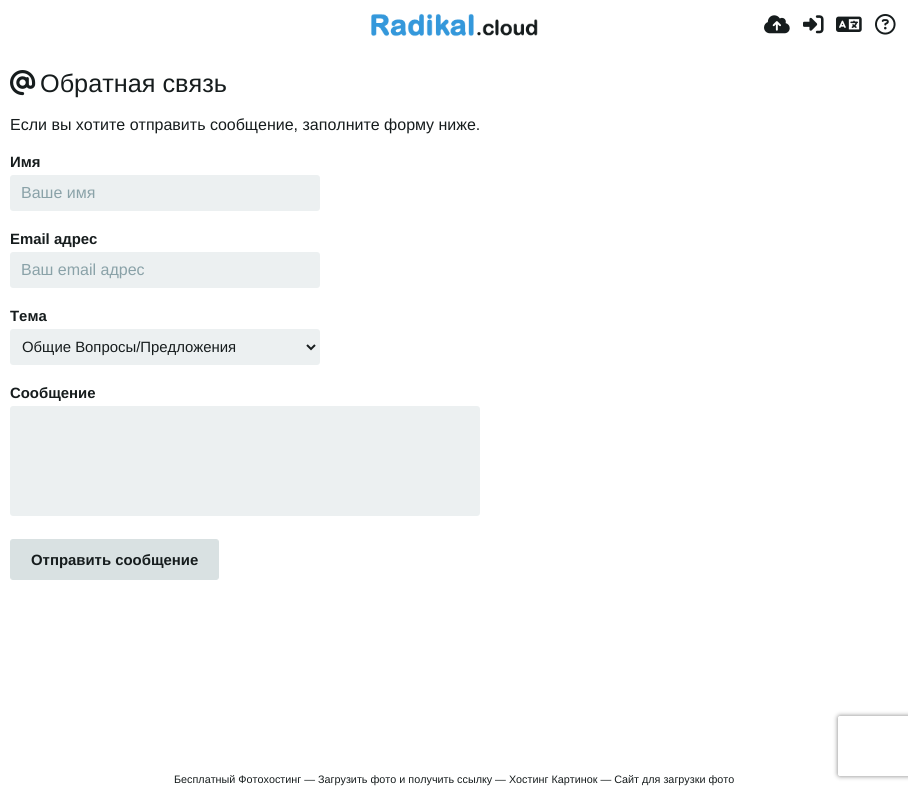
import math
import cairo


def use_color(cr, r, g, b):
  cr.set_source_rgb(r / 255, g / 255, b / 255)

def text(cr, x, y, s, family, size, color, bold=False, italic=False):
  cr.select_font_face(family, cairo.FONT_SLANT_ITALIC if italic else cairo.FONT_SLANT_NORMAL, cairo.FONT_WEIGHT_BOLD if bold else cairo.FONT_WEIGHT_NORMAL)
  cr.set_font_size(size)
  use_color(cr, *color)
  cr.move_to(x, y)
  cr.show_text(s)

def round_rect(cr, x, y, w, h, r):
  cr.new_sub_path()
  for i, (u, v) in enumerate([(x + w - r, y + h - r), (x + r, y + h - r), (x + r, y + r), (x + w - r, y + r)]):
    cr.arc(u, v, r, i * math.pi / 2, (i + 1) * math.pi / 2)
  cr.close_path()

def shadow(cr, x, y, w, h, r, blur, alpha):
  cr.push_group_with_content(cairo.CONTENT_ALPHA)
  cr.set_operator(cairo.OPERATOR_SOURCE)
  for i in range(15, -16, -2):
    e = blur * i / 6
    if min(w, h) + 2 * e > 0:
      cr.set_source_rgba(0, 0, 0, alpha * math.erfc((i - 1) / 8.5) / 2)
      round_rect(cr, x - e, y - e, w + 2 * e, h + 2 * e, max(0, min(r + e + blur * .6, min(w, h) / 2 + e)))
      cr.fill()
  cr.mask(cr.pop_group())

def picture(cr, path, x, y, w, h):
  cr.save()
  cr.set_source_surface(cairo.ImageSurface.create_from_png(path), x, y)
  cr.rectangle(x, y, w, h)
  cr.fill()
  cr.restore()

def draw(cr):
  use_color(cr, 255, 255, 255)
  cr.paint()
  picture(cr, "img_01.png", 371, 13, 167, 24)
  picture(cr, "img_02.png", 764, 15, 26, 19)
  picture(cr, "img_03.png", 803, 15, 21, 19)
  picture(cr, "img_04.png", 836, 16, 26, 16)
  picture(cr, "img_05.png", 875, 14, 21, 21)
  picture(cr, "img_06.png", 10, 70, 26, 26)
  use_color(cr, 236, 240, 241)
  round_rect(cr, 10, 175, 310, 36, 3)
  cr.fill()
  round_rect(cr, 10, 252, 310, 36, 3)
  cr.fill()
  round_rect(cr, 10, 329, 310, 36, 3)
  cr.fill()
  cr.new_path()
  cr.move_to(307, 345)
  cr.line_to(311, 349)
  cr.line_to(315, 345)
  use_color(cr, 22, 28, 29)
  cr.stroke()
  use_color(cr, 236, 240, 241)
  round_rect(cr, 10, 406, 470, 110, 3)
  cr.fill()
  use_color(cr, 217, 225, 226)
  round_rect(cr, 10.5, 539.5, 208, 40, 2.5)
  cr.fill_preserve()
  cr.set_line_width(1)
  cr.stroke()
  cr.save()
  cr.set_fill_rule(cairo.FILL_RULE_EVEN_ODD)
  cr.new_path()
  cr.move_to(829, 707)
  cr.line_to(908, 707)
  cr.line_to(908, 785)
  cr.line_to(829, 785)
  cr.close_path()
  cr.move_to(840, 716)
  cr.line_to(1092, 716)
  cr.curve_to(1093, 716, 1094, 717, 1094, 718)
  cr.line_to(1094, 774)
  cr.curve_to(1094, 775, 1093, 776, 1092, 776)
  cr.line_to(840, 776)
  cr.curve_to(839, 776, 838, 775, 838, 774)
  cr.line_to(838, 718)
  cr.curve_to(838, 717, 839, 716, 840, 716)
  cr.close_path()
  cr.clip()
  use_color(cr, 128, 128, 128)
  shadow(cr, 838, 716, 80, 60, 2, 2.5, 1)
  cr.restore()
  text(cr, 40, 92, "Обратная связь", "Liberation Sans", 25.25, (22, 28, 29))
  text(cr, 10, 130, "Если вы хотите отправить сообщение, заполните форму ниже.", "Liberation Sans", 16, (22, 28, 29))
  text(cr, 10, 167, "Имя", "Liberation Sans", 14.9, (22, 28, 29), bold=True)
  text(cr, 21, 198, "Ваше имя", "Liberation Sans", 16, (138, 162, 168))
  text(cr, 10, 244, "Email адрес", "Liberation Sans", 14.9, (22, 28, 29), bold=True)
  text(cr, 21, 275, "Ваш email адрес", "Liberation Sans", 16, (138, 162, 168))
  text(cr, 10, 321, "Тема", "Liberation Sans", 14.9, (22, 28, 29), bold=True)
  text(cr, 22, 352, "Общие Вопросы/Предложения", "Liberation Sans", 14.9, (22, 28, 29))
  text(cr, 10, 398, "Сообщение", "Liberation Sans", 14.9, (22, 28, 29), bold=True)
  text(cr, 31, 565, "Отправить сообщение", "Liberation Sans", 14.9, (22, 28, 29), bold=True)
  text(cr, 174, 783, "Бесплатный Фотохостинг — Загрузить фото и получить ссылку — Хостинг Картинок — Сайт для загрузки фото", "Liberation Sans", 10.8, (22, 28, 29))


surface = cairo.ImageSurface(cairo.FORMAT_RGB24, 908, 790)
cr = cairo.Context(surface)
options = cairo.FontOptions()
options.set_hint_metrics(cairo.HINT_METRICS_OFF)
options.set_hint_style(cairo.HINT_STYLE_NONE)
cr.set_font_options(options)
cr.set_miter_limit(4)
draw(cr)
surface.write_to_png("out.png")
